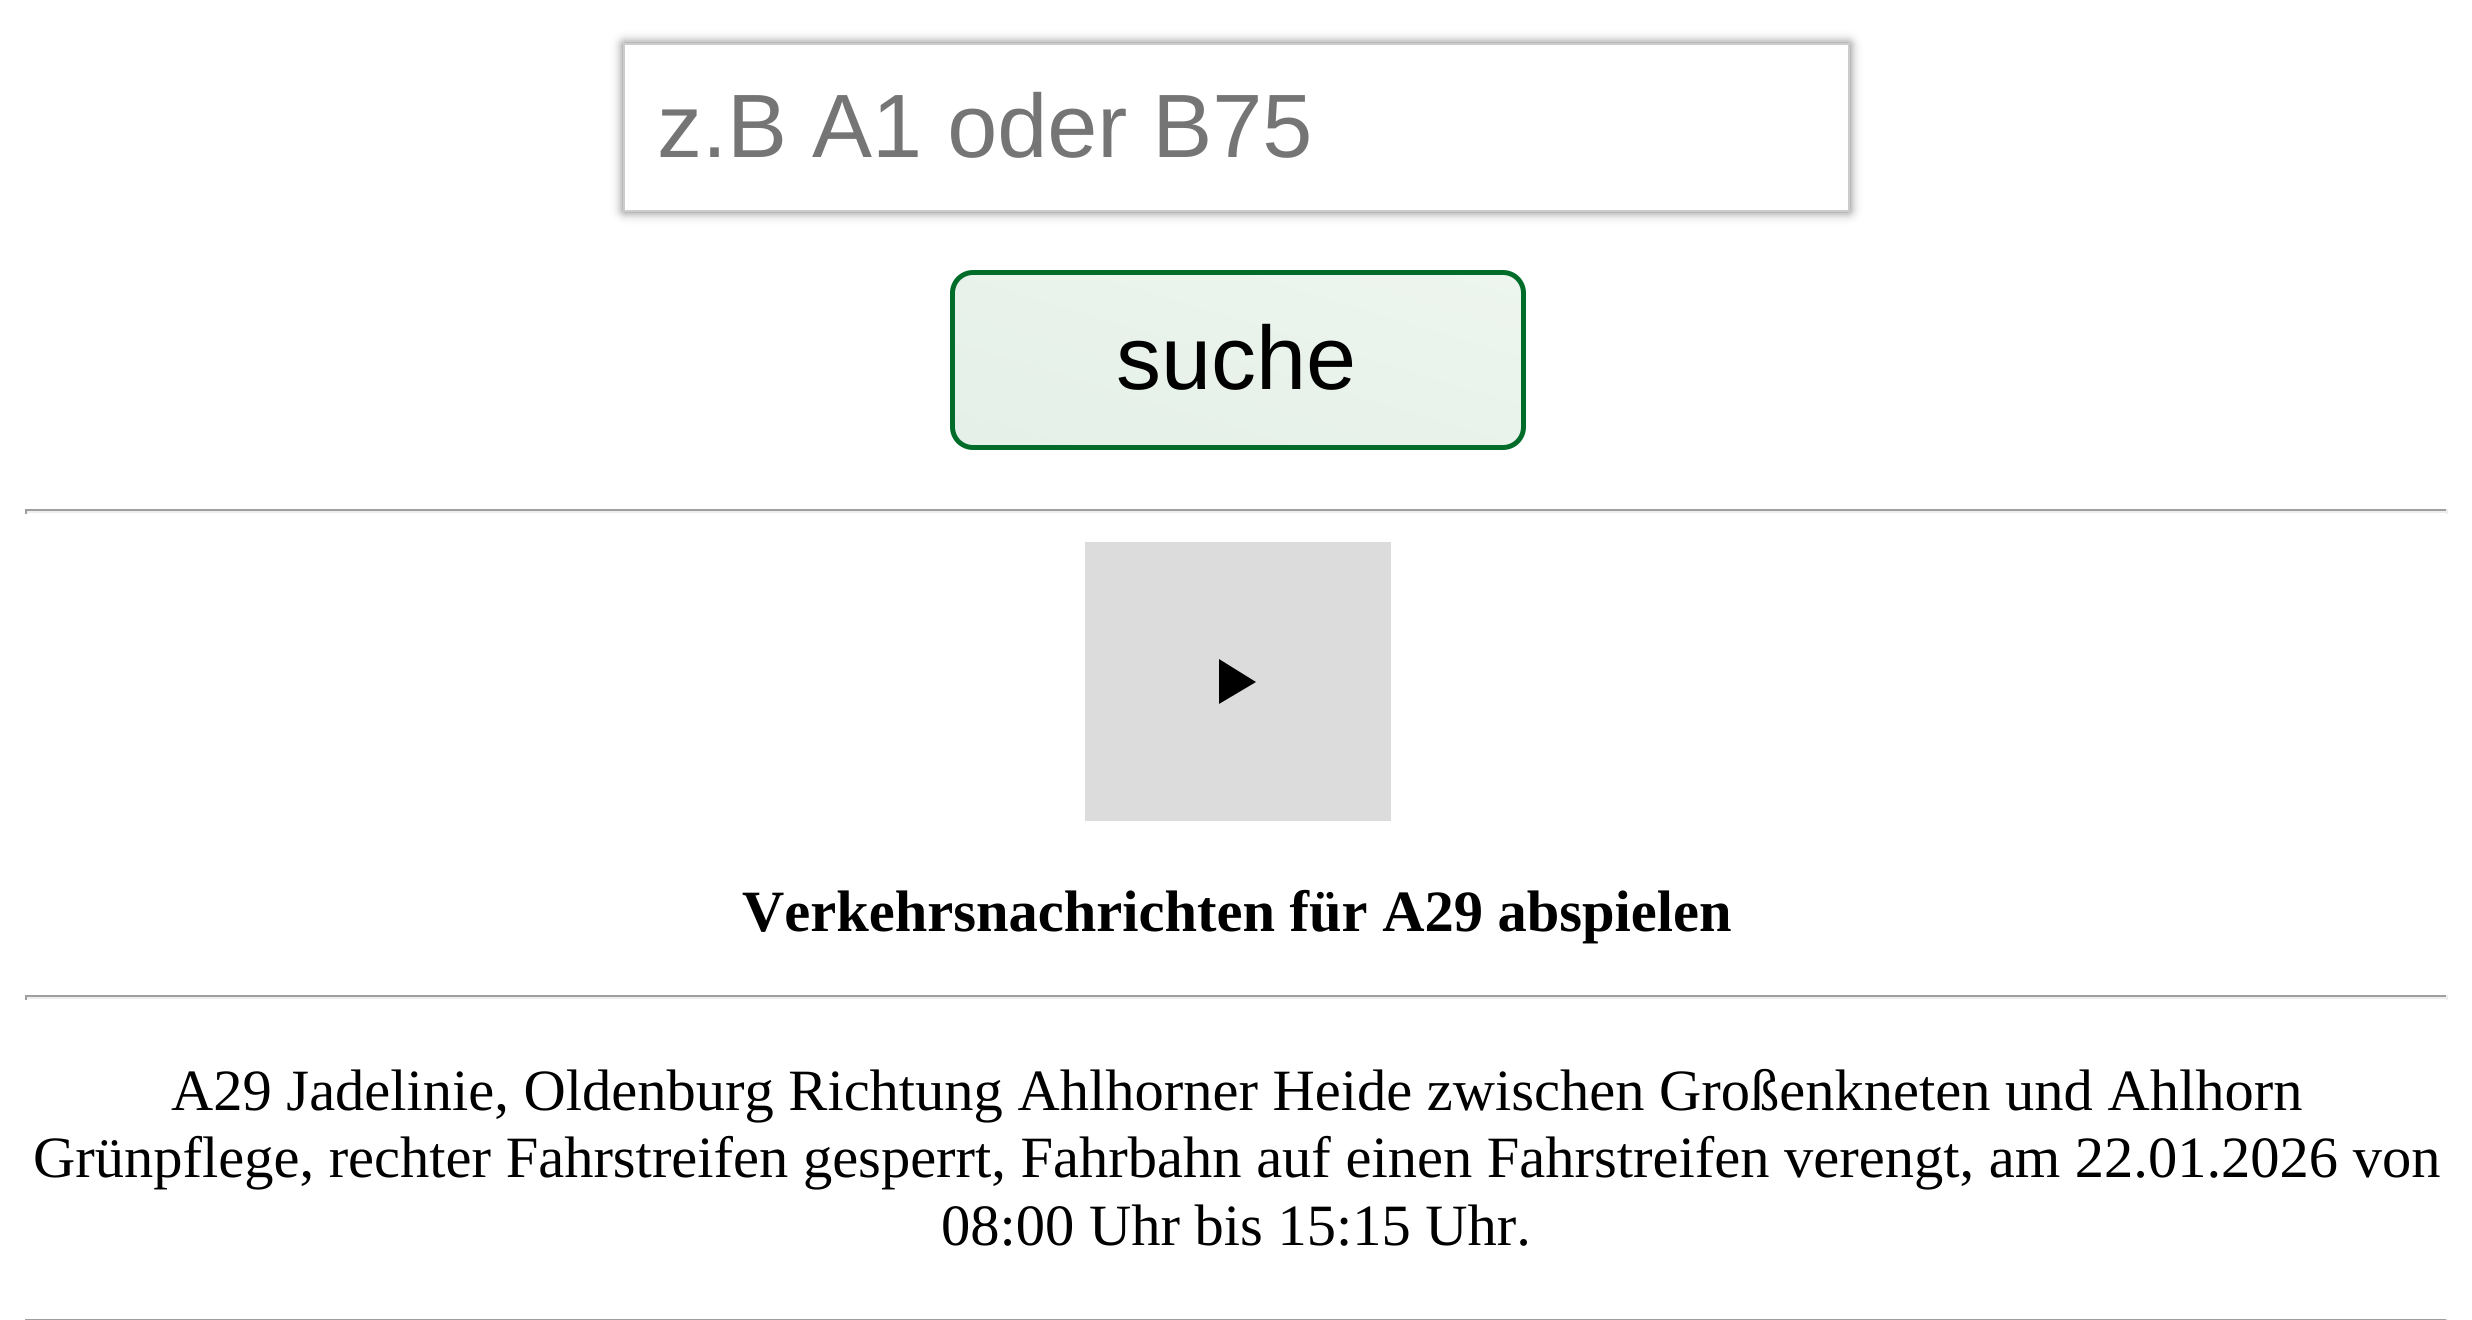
import math
import cairo


def use_color(cr, r, g, b):
  cr.set_source_rgb(r / 255, g / 255, b / 255)

def text(cr, x, y, s, family, size, color, bold=False, italic=False):
  cr.select_font_face(family, cairo.FONT_SLANT_ITALIC if italic else cairo.FONT_SLANT_NORMAL, cairo.FONT_WEIGHT_BOLD if bold else cairo.FONT_WEIGHT_NORMAL)
  cr.set_font_size(size)
  use_color(cr, *color)
  cr.move_to(x, y)
  cr.show_text(s)

def box(cr, x, y, w, h, *color):
  use_color(cr, *color)
  cr.rectangle(x, y, w, h)
  cr.fill()

def round_rect(cr, x, y, w, h, r):
  cr.new_sub_path()
  for i, (u, v) in enumerate([(x + w - r, y + h - r), (x + r, y + h - r), (x + r, y + r), (x + w - r, y + r)]):
    cr.arc(u, v, r, i * math.pi / 2, (i + 1) * math.pi / 2)
  cr.close_path()

def shadow(cr, x, y, w, h, r, blur, alpha):
  cr.push_group_with_content(cairo.CONTENT_ALPHA)
  cr.set_operator(cairo.OPERATOR_SOURCE)
  for i in range(15, -16, -2):
    e = blur * i / 6
    if min(w, h) + 2 * e > 0:
      cr.set_source_rgba(0, 0, 0, alpha * math.erfc((i - 1) / 8.5) / 2)
      round_rect(cr, x - e, y - e, w + 2 * e, h + 2 * e, max(0, min(r + e + blur * .6, min(w, h) / 2 + e)))
      cr.fill()
  cr.mask(cr.pop_group())

def draw(cr):
  use_color(cr, 255, 255, 255)
  cr.paint()
  use_color(cr, 66, 66, 66)
  shadow(cr, 623, 43, 1227, 169, 0, 5.5, 0.75)
  use_color(cr, 255, 255, 255)
  cr.rectangle(624, 44, 1225, 167)
  cr.fill_preserve()
  use_color(cr, 204, 204, 204)
  cr.stroke()
  cr.save()
  round_rect(cr, 950, 270, 576, 180, 23)
  cr.clip()
  gradient = cairo.LinearGradient(1190, 517, 1285, 203)
  gradient.add_color_stop_rgba(0, 0.894, 0.941, 0.91, 1)
  gradient.add_color_stop_rgba(1, 0.929, 0.961, 0.933, 1)
  cr.set_source(gradient)
  cr.rectangle(954, 275, 567, 171)
  cr.fill()
  cr.restore()
  round_rect(cr, 952.5, 272.5, 571, 175, 20.5)
  use_color(cr, 0, 108, 41)
  cr.set_line_width(5)
  cr.stroke()
  box(cr, 25, 509, 2423, 2, 159, 159, 159)
  box(cr, 2446, 509, 2, 5, 238, 238, 238)
  box(cr, 25, 511, 2423, 2, 238, 238, 238)
  box(cr, 25, 509, 2, 5, 159, 159, 159)
  box(cr, 1085, 542, 306, 279, 220, 220, 220)
  use_color(cr, 0, 0, 0)
  cr.new_path()
  cr.move_to(1219, 704)
  cr.line_to(1219, 659)
  cr.line_to(1256, 682)
  cr.close_path()
  cr.fill()
  box(cr, 25, 995, 2423, 2, 159, 159, 159)
  box(cr, 2446, 995, 2, 5, 238, 238, 238)
  box(cr, 25, 997, 2423, 2, 238, 238, 238)
  box(cr, 25, 995, 2, 5, 159, 159, 159)
  box(cr, 25, 1319, 2423, 1, 159, 159, 159)
  box(cr, 2446, 1319, 2, 1, 238, 238, 238)
  text(cr, 657, 157, "z.B A1 oder B75", "Liberation Sans", 90, (117, 117, 117))
  text(cr, 1116, 389, "suche", "Liberation Sans", 90, (0, 0, 0))
  text(cr, 742, 931, "Verkehrsnachrichten für A29 abspielen", "Liberation Serif", 58.5, (0, 0, 0), bold=True)
  text(cr, 171, 1110, "A29 Jadelinie, Oldenburg Richtung Ahlhorner Heide zwischen Großenkneten und Ahlhorn", "Liberation Serif", 58.5, (0, 0, 0))
  text(cr, 33, 1177, "Grünpflege, rechter Fahrstreifen gesperrt, Fahrbahn auf einen Fahrstreifen verengt, am 22.01.2026 von", "Liberation Serif", 58.5, (0, 0, 0))
  text(cr, 941, 1245, "08:00 Uhr bis 15:15 Uhr.", "Liberation Serif", 58.5, (0, 0, 0))


surface = cairo.ImageSurface(cairo.FORMAT_RGB24, 2472, 1320)
cr = cairo.Context(surface)
options = cairo.FontOptions()
options.set_hint_metrics(cairo.HINT_METRICS_OFF)
options.set_hint_style(cairo.HINT_STYLE_NONE)
cr.set_font_options(options)
cr.set_miter_limit(4)
draw(cr)
surface.write_to_png("out.png")
